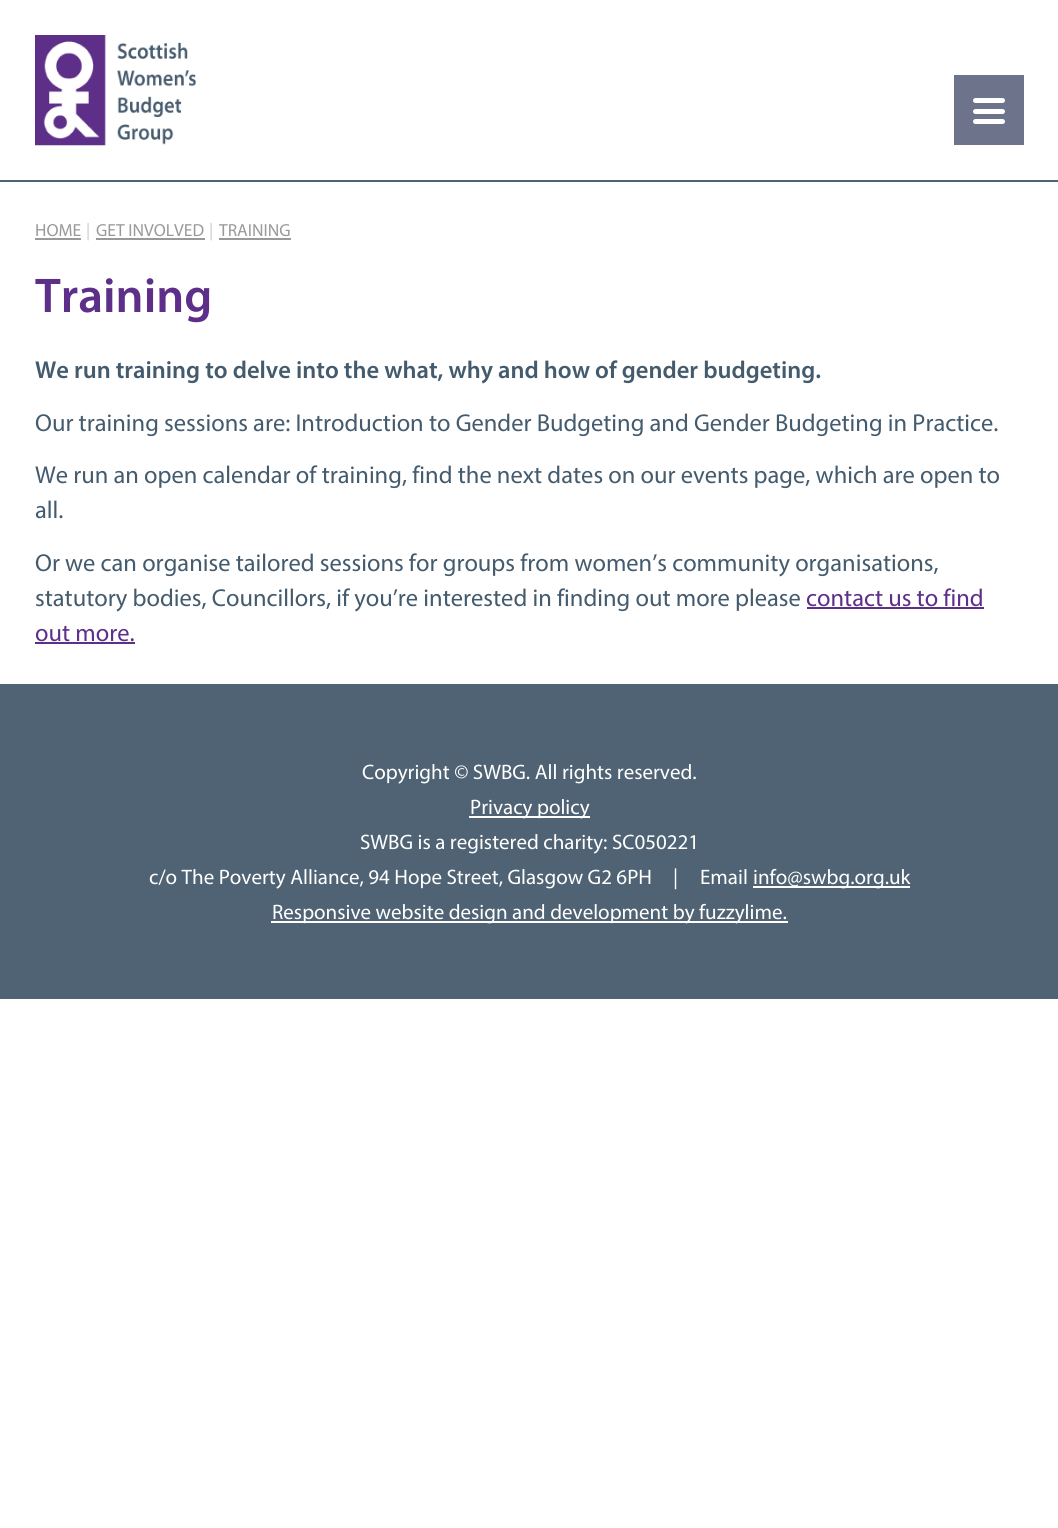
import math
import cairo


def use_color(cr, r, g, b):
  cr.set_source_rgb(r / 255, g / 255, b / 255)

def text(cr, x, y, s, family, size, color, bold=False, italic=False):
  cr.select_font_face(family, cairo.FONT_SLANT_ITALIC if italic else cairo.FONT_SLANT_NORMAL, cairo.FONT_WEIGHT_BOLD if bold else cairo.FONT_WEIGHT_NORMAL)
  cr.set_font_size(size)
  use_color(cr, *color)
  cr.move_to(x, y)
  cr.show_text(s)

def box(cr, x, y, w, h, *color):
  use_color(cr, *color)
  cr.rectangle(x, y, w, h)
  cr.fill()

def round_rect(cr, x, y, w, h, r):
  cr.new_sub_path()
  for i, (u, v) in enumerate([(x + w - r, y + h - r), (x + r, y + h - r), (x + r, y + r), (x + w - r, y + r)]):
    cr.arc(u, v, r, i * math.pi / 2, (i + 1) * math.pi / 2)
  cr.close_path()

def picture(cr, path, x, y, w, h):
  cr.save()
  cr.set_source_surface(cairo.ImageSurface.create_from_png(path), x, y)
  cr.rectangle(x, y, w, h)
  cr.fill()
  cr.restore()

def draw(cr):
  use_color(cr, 255, 255, 255)
  cr.paint()
  box(cr, 0, 180, 1058, 2, 79, 99, 116)
  picture(cr, "img_01.png", 35, 35, 161, 111)
  box(cr, 954, 75, 70, 70, 108, 115, 138)
  use_color(cr, 255, 255, 255)
  round_rect(cr, 973, 98, 32, 5, 2.5)
  cr.fill()
  round_rect(cr, 973, 109, 32, 5, 2.5)
  cr.fill()
  round_rect(cr, 973, 119, 32, 5, 2.5)
  cr.fill()
  box(cr, 35, 238, 46, 2, 153, 153, 153)
  box(cr, 96, 238, 109, 2, 153, 153, 153)
  box(cr, 219, 238, 72, 2, 153, 153, 153)
  box(cr, 807, 607, 177, 2, 94, 47, 136)
  box(cr, 35, 642, 100, 2, 94, 47, 136)
  box(cr, 0, 684, 1058, 315, 79, 99, 116)
  box(cr, 469, 816, 121, 2, 255, 255, 255)
  box(cr, 753, 886, 157, 2, 255, 255, 255)
  box(cr, 271, 921, 517, 2, 255, 255, 255)
  text(cr, 35, 236, "HOME", "Myriad", 17.5, (153, 153, 153))
  text(cr, 86, 236, "|", "Myriad", 17.5, (204, 204, 204))
  text(cr, 96, 236, "GET INVOLVED", "Myriad", 17.5, (153, 153, 153))
  text(cr, 209, 236, "|", "Myriad", 17.5, (204, 204, 204))
  text(cr, 219, 236, "TRAINING", "Myriad", 17.5, (153, 153, 153))
  text(cr, 35, 312, "Training", "Myriad SemiBold", 49, (94, 47, 136))
  text(cr, 35, 378, "We run training to delve into the what, why and how of gender budgeting.", "Myriad SemiBold", 24.5, (68, 91, 110))
  text(cr, 35, 431, "Our training sessions are: Introduction to Gender Budgeting and Gender Budgeting in Practice.", "Myriad", 24.5, (68, 91, 110))
  text(cr, 35, 483, "We run an open calendar of training, find the next dates on our events page, which are open to", "Myriad", 24.5, (68, 91, 110))
  text(cr, 35, 518, "all.", "Myriad", 24.5, (68, 91, 110))
  text(cr, 35, 571, "Or we can organise tailored sessions for groups from women’s community organisations,", "Myriad", 24.5, (68, 91, 110))
  text(cr, 35, 606, "statutory bodies, Councillors, if you’re interested in finding out more please", "Myriad", 24.5, (68, 91, 110))
  text(cr, 806, 606, "contact us to find", "Myriad", 24.5, (94, 47, 136))
  text(cr, 35, 641, "out more.", "Myriad", 24.5, (94, 47, 136))
  text(cr, 362, 779, "Copyright © SWBG. All rights reserved.", "Myriad", 21, (255, 255, 255))
  text(cr, 470, 814, "Privacy policy", "Myriad", 21, (255, 255, 255))
  text(cr, 360, 849, "SWBG is a registered charity: SC050221", "Myriad", 21, (255, 255, 255))
  text(cr, 149, 884, "c/o The Poverty Alliance, 94 Hope Street, Glasgow G2 6PH", "Myriad", 21, (255, 255, 255))
  text(cr, 673, 884, "|", "Myriad", 21, (255, 255, 255))
  text(cr, 700, 884, "Email", "Myriad", 21, (255, 255, 255))
  text(cr, 753, 884, "info@swbg.org.uk", "Myriad", 21, (255, 255, 255))
  text(cr, 272, 919, "Responsive website design and development by fuzzylime.", "Myriad", 21, (255, 255, 255))


surface = cairo.ImageSurface(cairo.FORMAT_RGB24, 1058, 1528)
cr = cairo.Context(surface)
options = cairo.FontOptions()
options.set_hint_metrics(cairo.HINT_METRICS_OFF)
options.set_hint_style(cairo.HINT_STYLE_NONE)
cr.set_font_options(options)
cr.set_miter_limit(4)
draw(cr)
surface.write_to_png("out.png")
